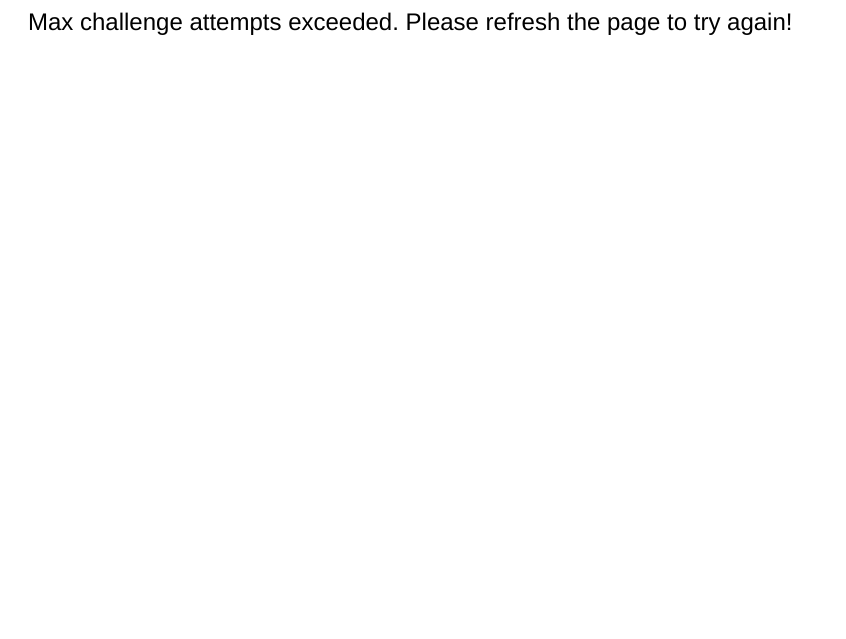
import math
import cairo


def use_color(cr, r, g, b):
  cr.set_source_rgb(r / 255, g / 255, b / 255)

def text(cr, x, y, s, family, size, color, bold=False, italic=False):
  cr.select_font_face(family, cairo.FONT_SLANT_ITALIC if italic else cairo.FONT_SLANT_NORMAL, cairo.FONT_WEIGHT_BOLD if bold else cairo.FONT_WEIGHT_NORMAL)
  cr.set_font_size(size)
  use_color(cr, *color)
  cr.move_to(x, y)
  cr.show_text(s)

def draw(cr):
  use_color(cr, 255, 255, 255)
  cr.paint()
  text(cr, 28, 30, "Max challenge attempts exceeded. Please refresh the page to try again!", "Liberation Sans", 24, (0, 0, 0))


surface = cairo.ImageSurface(cairo.FORMAT_RGB24, 846, 639)
cr = cairo.Context(surface)
options = cairo.FontOptions()
options.set_hint_metrics(cairo.HINT_METRICS_OFF)
options.set_hint_style(cairo.HINT_STYLE_NONE)
cr.set_font_options(options)
cr.set_miter_limit(4)
draw(cr)
surface.write_to_png("out.png")
